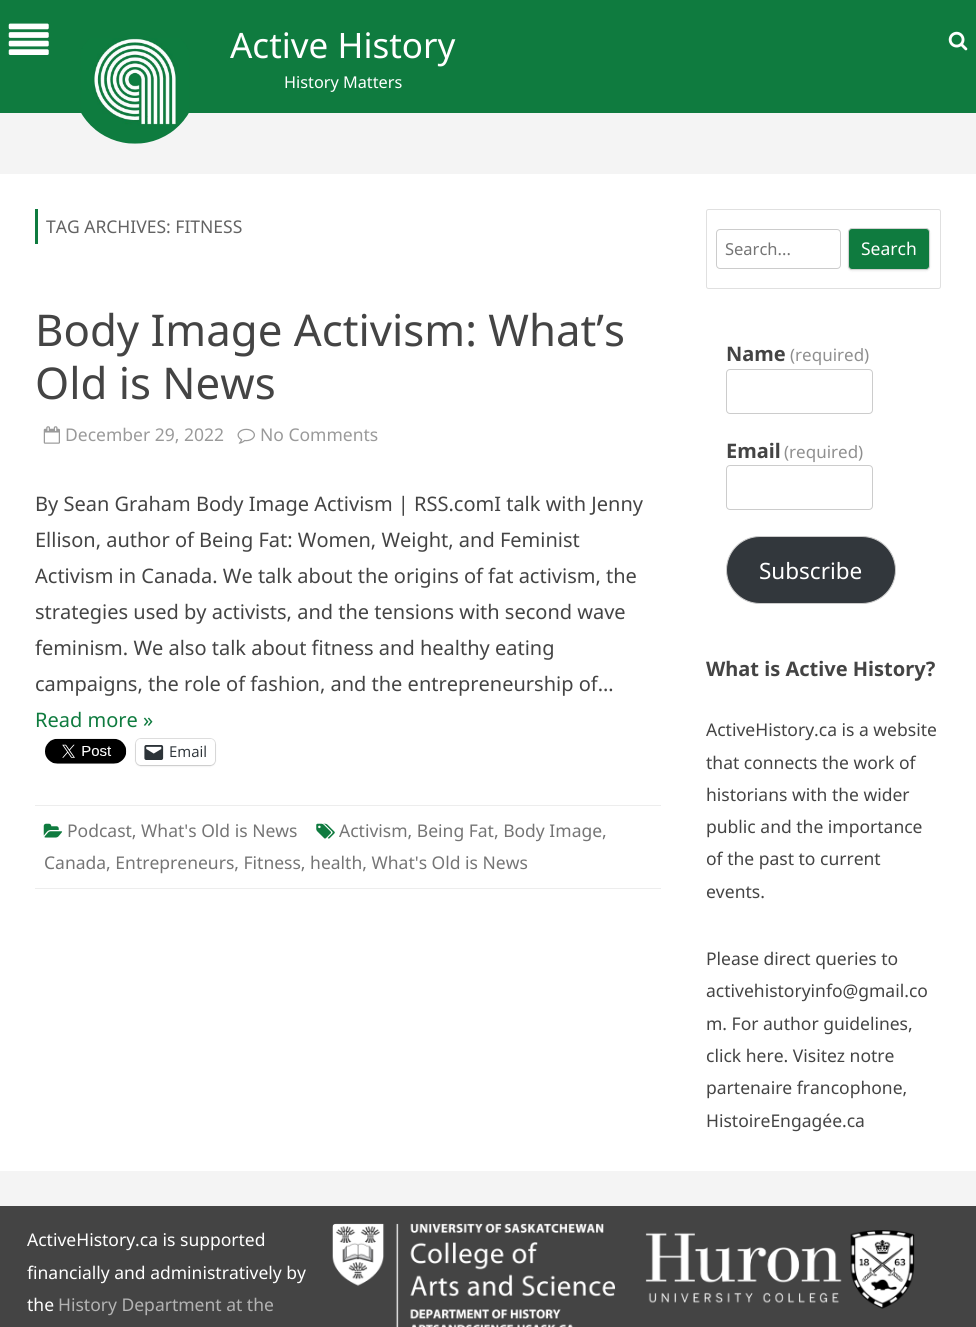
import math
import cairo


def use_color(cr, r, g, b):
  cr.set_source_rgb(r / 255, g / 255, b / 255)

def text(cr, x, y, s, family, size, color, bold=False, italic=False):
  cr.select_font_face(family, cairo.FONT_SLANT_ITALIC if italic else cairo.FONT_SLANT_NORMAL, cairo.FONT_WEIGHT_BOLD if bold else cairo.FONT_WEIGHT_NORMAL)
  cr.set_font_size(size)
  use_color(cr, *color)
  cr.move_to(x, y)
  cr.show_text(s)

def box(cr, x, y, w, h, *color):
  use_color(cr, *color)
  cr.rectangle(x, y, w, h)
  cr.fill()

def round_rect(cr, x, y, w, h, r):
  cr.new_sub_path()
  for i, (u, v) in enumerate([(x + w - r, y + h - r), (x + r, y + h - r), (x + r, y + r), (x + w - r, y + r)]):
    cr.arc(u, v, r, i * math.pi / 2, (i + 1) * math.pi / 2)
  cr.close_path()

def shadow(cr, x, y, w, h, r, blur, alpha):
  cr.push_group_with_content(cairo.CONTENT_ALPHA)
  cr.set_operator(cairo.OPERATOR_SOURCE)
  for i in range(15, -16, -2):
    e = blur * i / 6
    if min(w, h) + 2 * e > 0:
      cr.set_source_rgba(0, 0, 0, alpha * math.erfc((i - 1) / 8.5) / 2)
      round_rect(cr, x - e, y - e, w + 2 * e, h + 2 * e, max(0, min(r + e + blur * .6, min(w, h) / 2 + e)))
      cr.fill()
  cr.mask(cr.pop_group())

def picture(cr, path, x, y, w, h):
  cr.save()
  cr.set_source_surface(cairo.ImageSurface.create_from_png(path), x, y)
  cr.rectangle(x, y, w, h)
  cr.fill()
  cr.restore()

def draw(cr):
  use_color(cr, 244, 244, 244)
  cr.paint()
  box(cr, 0, 0, 976, 113, 15, 123, 63)
  picture(cr, "img_01.png", 8, 23, 41, 32)
  picture(cr, "img_02.png", 81, 38, 108, 106)
  picture(cr, "img_03.png", 948, 31, 20, 20)
  box(cr, 0, 174, 976, 997, 255, 255, 255)
  box(cr, 35, 209, 3, 35, 15, 123, 63)
  box(cr, 35, 888, 626, 1, 237, 237, 237)
  picture(cr, "img_04.png", 43, 426, 17, 18)
  picture(cr, "img_05.png", 237, 428, 18, 16)
  box(cr, 35, 805, 626, 1, 237, 237, 237)
  picture(cr, "img_06.png", 45, 738, 82, 26)
  round_rect(cr, 135.5, 738.5, 80, 27, 5.5)
  use_color(cr, 224, 224, 224)
  cr.set_line_width(1)
  cr.stroke()
  use_color(cr, 0, 0, 0)
  shadow(cr, 136, 740, 79, 26, 5, 1, 0.12)
  use_color(cr, 255, 255, 255)
  round_rect(cr, 136, 739, 79, 26, 5)
  cr.fill()
  picture(cr, "img_07.png", 144, 745, 20, 15)
  picture(cr, "img_08.png", 43, 823, 20, 15)
  picture(cr, "img_09.png", 316, 823, 19, 16)
  round_rect(cr, 706.5, 209.5, 234, 79, 2)
  use_color(cr, 224, 224, 224)
  cr.stroke()
  round_rect(cr, 716.5, 229.5, 124, 39, 3.5)
  use_color(cr, 204, 204, 204)
  cr.stroke()
  use_color(cr, 64, 64, 64)
  shadow(cr, 848, 229, 82, 42, 4, 1, 0.1)
  use_color(cr, 15, 123, 63)
  round_rect(cr, 848.5, 228.5, 81, 41, 3.5)
  cr.fill_preserve()
  use_color(cr, 210, 210, 210)
  cr.stroke()
  round_rect(cr, 726.5, 369.5, 146, 44, 3.5)
  use_color(cr, 204, 204, 204)
  cr.stroke()
  round_rect(cr, 726.5, 465.5, 146, 44, 3.5)
  cr.stroke()
  use_color(cr, 50, 55, 60)
  round_rect(cr, 726.5, 536.5, 169, 67, 33.5)
  cr.fill_preserve()
  use_color(cr, 204, 204, 204)
  cr.stroke()
  box(cr, 0, 1206, 976, 121, 68, 68, 68)
  picture(cr, "img_10.png", 332, 1223, 283, 104)
  picture(cr, "img_11.png", 645, 1230, 270, 79)
  text(cr, 230, 58, "Active History", "Noto Sans", 35, (255, 255, 255))
  text(cr, 284, 88, "History Matters", "Noto Sans", 16.25, (255, 255, 255))
  text(cr, 46, 233, "TAG ARCHIVES: FITNESS", "Noto Sans", 17.5, (99, 99, 99))
  text(cr, 35, 346, "Body Image Activism: What’s", "Noto Sans", 43.75, (68, 68, 68))
  text(cr, 35, 399, "Old is News", "Noto Sans", 43.75, (68, 68, 68))
  text(cr, 65, 441, "December 29, 2022", "Noto Sans", 17.5, (154, 154, 154))
  text(cr, 260, 441, "No Comments", "Noto Sans", 17.5, (154, 154, 154))
  text(cr, 35, 511, "By Sean Graham Body Image Activism | RSS.comI talk with Jenny", "Noto Sans", 20, (68, 68, 68))
  text(cr, 35, 547, "Ellison, author of Being Fat: Women, Weight, and Feminist", "Noto Sans", 20, (68, 68, 68))
  text(cr, 35, 583, "Activism in Canada. We talk about the origins of fat activism, the", "Noto Sans", 20, (68, 68, 68))
  text(cr, 35, 619, "strategies used by activists, and the tensions with second wave", "Noto Sans", 20, (68, 68, 68))
  text(cr, 35, 655, "feminism. We also talk about fitness and healthy eating", "Noto Sans", 20, (68, 68, 68))
  text(cr, 35, 691, "campaigns, the role of fashion, and the entrepreneurship of…", "Noto Sans", 20, (68, 68, 68))
  text(cr, 35, 727, "Read more »", "Noto Sans", 20, (15, 123, 63))
  text(cr, 169, 757, "Email", "Open Sans", 15, (44, 51, 56))
  text(cr, 67, 837, "Podcast, What's Old is News", "Noto Sans", 17.5, (117, 117, 117))
  text(cr, 339, 837, "Activism, Being Fat, Body Image,", "Noto Sans", 17.5, (117, 117, 117))
  text(cr, 44, 869, "Canada, Entrepreneurs, Fitness, health, What's Old is News", "Noto Sans", 17.5, (117, 117, 117))
  text(cr, 725, 255, "Search...", "Noto Sans", 16.5, (117, 117, 117))
  text(cr, 861, 255, "Search", "Noto Sans", 17.5, (255, 255, 255))
  text(cr, 726, 361, "Name", "Noto Sans", 20, (68, 68, 68), bold=True)
  text(cr, 790, 361, "(required)", "Noto Sans", 17, (143, 143, 143))
  text(cr, 726, 458, "Email", "Noto Sans", 20, (68, 68, 68), bold=True)
  text(cr, 784, 458, "(required)", "Noto Sans", 17, (143, 143, 143))
  text(cr, 759, 579, "Subscribe", "Noto Sans", 22.5, (255, 255, 255))
  text(cr, 706, 676, "What is Active History?", "Noto Sans", 20, (68, 68, 68), bold=True)
  text(cr, 706, 736, "ActiveHistory.ca is a website", "Noto Sans", 17.5, (68, 68, 68))
  text(cr, 706, 769, "that connects the work of", "Noto Sans", 17.5, (68, 68, 68))
  text(cr, 706, 801, "historians with the wider", "Noto Sans", 17.5, (68, 68, 68))
  text(cr, 706, 833, "public and the importance", "Noto Sans", 17.5, (68, 68, 68))
  text(cr, 706, 865, "of the past to current", "Noto Sans", 17.5, (68, 68, 68))
  text(cr, 706, 898, "events.", "Noto Sans", 17.5, (68, 68, 68))
  text(cr, 706, 965, "Please direct queries to", "Noto Sans", 17.5, (68, 68, 68))
  text(cr, 706, 997, "activehistoryinfo@gmail.co", "Noto Sans", 17.5, (68, 68, 68))
  text(cr, 706, 1030, "m. For author guidelines,", "Noto Sans", 17.5, (68, 68, 68))
  text(cr, 706, 1062, "click here. Visitez notre", "Noto Sans", 17.5, (68, 68, 68))
  text(cr, 706, 1094, "partenaire francophone,", "Noto Sans", 17.5, (68, 68, 68))
  text(cr, 706, 1127, "HistoireEngagée.ca", "Noto Sans", 17.5, (68, 68, 68))
  text(cr, 27, 1246, "ActiveHistory.ca is supported", "Noto Sans", 17.5, (255, 255, 255))
  text(cr, 27, 1279, "financially and administratively by", "Noto Sans", 17.5, (255, 255, 255))
  text(cr, 27, 1311, "the", "Noto Sans", 17.5, (255, 255, 255))
  text(cr, 58, 1311, "History Department at the", "Noto Sans", 17.5, (179, 179, 179))


surface = cairo.ImageSurface(cairo.FORMAT_RGB24, 976, 1327)
cr = cairo.Context(surface)
options = cairo.FontOptions()
options.set_hint_metrics(cairo.HINT_METRICS_OFF)
options.set_hint_style(cairo.HINT_STYLE_NONE)
cr.set_font_options(options)
cr.set_miter_limit(4)
draw(cr)
surface.write_to_png("out.png")
